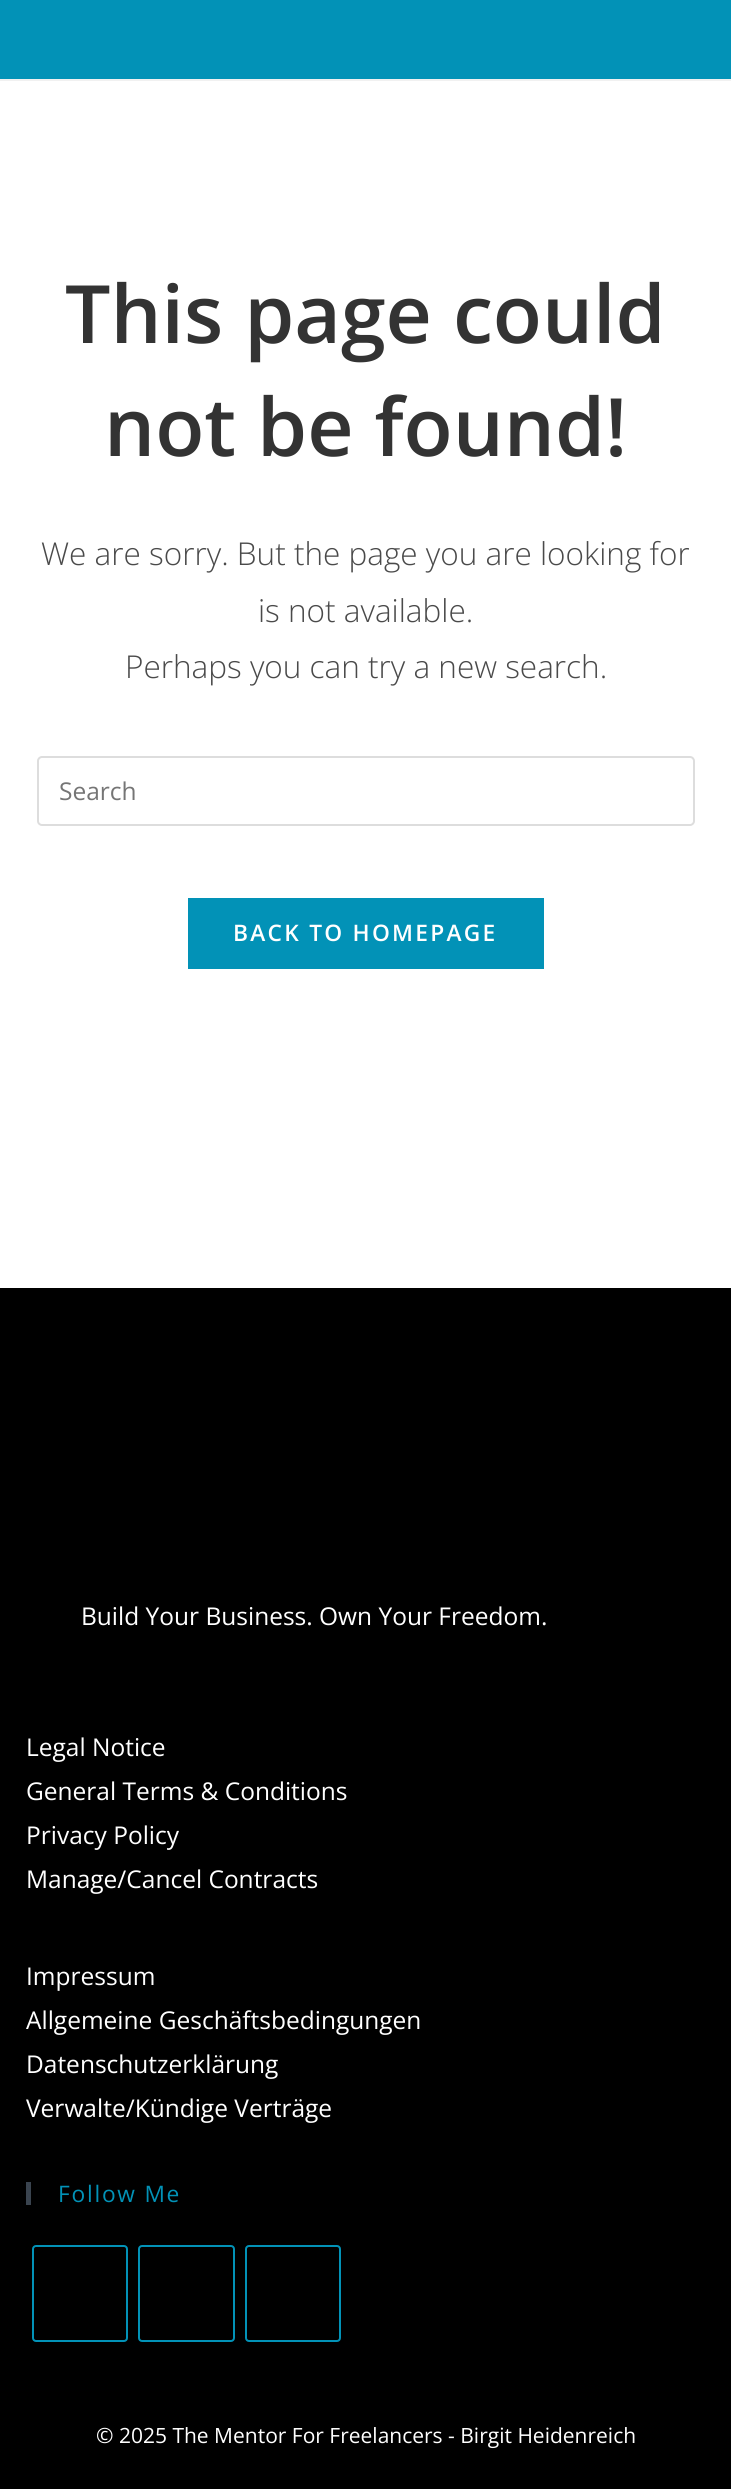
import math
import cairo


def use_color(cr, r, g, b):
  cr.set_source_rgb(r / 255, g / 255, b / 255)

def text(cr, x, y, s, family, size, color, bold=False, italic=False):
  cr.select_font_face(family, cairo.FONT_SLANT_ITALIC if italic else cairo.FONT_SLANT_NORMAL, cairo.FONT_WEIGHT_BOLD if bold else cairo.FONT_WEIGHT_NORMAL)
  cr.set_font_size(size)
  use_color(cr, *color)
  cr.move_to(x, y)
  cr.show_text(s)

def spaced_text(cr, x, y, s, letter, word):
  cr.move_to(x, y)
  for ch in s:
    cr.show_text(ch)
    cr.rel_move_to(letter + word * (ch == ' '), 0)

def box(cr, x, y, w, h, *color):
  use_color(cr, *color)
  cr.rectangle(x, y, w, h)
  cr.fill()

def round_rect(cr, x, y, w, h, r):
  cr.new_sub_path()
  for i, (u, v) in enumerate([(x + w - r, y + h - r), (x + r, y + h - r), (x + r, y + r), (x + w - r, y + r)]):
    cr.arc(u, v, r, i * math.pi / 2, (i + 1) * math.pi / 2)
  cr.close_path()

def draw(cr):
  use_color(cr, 255, 255, 255)
  cr.paint()
  box(cr, 0, 0, 731, 79, 2, 146, 183)
  box(cr, 0, 79, 731, 2, 241, 241, 241)
  round_rect(cr, 38, 757, 656, 68, 4)
  use_color(cr, 221, 221, 221)
  cr.stroke()
  box(cr, 188, 898, 356, 71, 2, 146, 183)
  box(cr, 0, 1288, 731, 1201, 0, 0, 0)
  box(cr, 26, 2182, 5, 23, 58, 68, 79)
  round_rect(cr, 33, 2246, 94, 95, 3)
  use_color(cr, 2, 146, 183)
  cr.stroke()
  round_rect(cr, 139, 2246, 95, 95, 3)
  cr.stroke()
  round_rect(cr, 246, 2246, 94, 95, 3)
  cr.stroke()
  text(cr, 65, 343, "This page could", "Open Sans SemiBold", 80.5, (51, 51, 51))
  text(cr, 104, 456, "not be found!", "Open Sans SemiBold", 80.5, (51, 51, 51))
  text(cr, 41, 565, "We are sorry. But the page you are looking for", "Open Sans Light", 31.5, (74, 74, 74))
  text(cr, 258, 622, "is not available.", "Open Sans Light", 31.5, (74, 74, 74))
  text(cr, 125, 678, "Perhaps you can try a new search.", "Open Sans Light", 31.5, (74, 74, 74))
  text(cr, 59, 800, "Search", "Open Sans", 24.5, (117, 117, 117))
  cr.select_font_face("Open Sans SemiBold")
  cr.set_font_size(22.75)
  use_color(cr, 255, 255, 255)
  spaced_text(cr, 233, 941, "BACK TO HOMEPAGE", 2.25, 0)
  text(cr, 81, 1625, "Build Your Business. Own Your Freedom.", "Open Sans", 24.5, (255, 255, 255))
  text(cr, 26, 1756, "Legal Notice", "Open Sans", 24.5, (255, 255, 255))
  text(cr, 26, 1800, "General Terms & Conditions", "Open Sans", 24.5, (255, 255, 255))
  text(cr, 26, 1844, "Privacy Policy", "Open Sans", 24.5, (255, 255, 255))
  text(cr, 26, 1888, "Manage/Cancel Contracts", "Open Sans", 24.5, (255, 255, 255))
  text(cr, 26, 1985, "Impressum", "Open Sans", 24.5, (255, 255, 255))
  text(cr, 26, 2029, "Allgemeine Geschäftsbedingungen", "Open Sans", 24.5, (255, 255, 255))
  text(cr, 26, 2073, "Datenschutzerklärung", "Open Sans", 24.5, (255, 255, 255))
  text(cr, 26, 2117, "Verwalte/Kündige Verträge", "Open Sans", 24.5, (255, 255, 255))
  cr.set_font_size(22.75)
  use_color(cr, 2, 146, 183)
  spaced_text(cr, 58, 2202, "Follow Me", 1.75, 0)
  text(cr, 96, 2443, "© 2025 The Mentor For Freelancers - Birgit Heidenreich", "Open Sans", 21, (255, 255, 255))


surface = cairo.ImageSurface(cairo.FORMAT_RGB24, 731, 2489)
cr = cairo.Context(surface)
options = cairo.FontOptions()
options.set_hint_metrics(cairo.HINT_METRICS_OFF)
options.set_hint_style(cairo.HINT_STYLE_NONE)
cr.set_font_options(options)
cr.set_miter_limit(4)
draw(cr)
surface.write_to_png("out.png")
